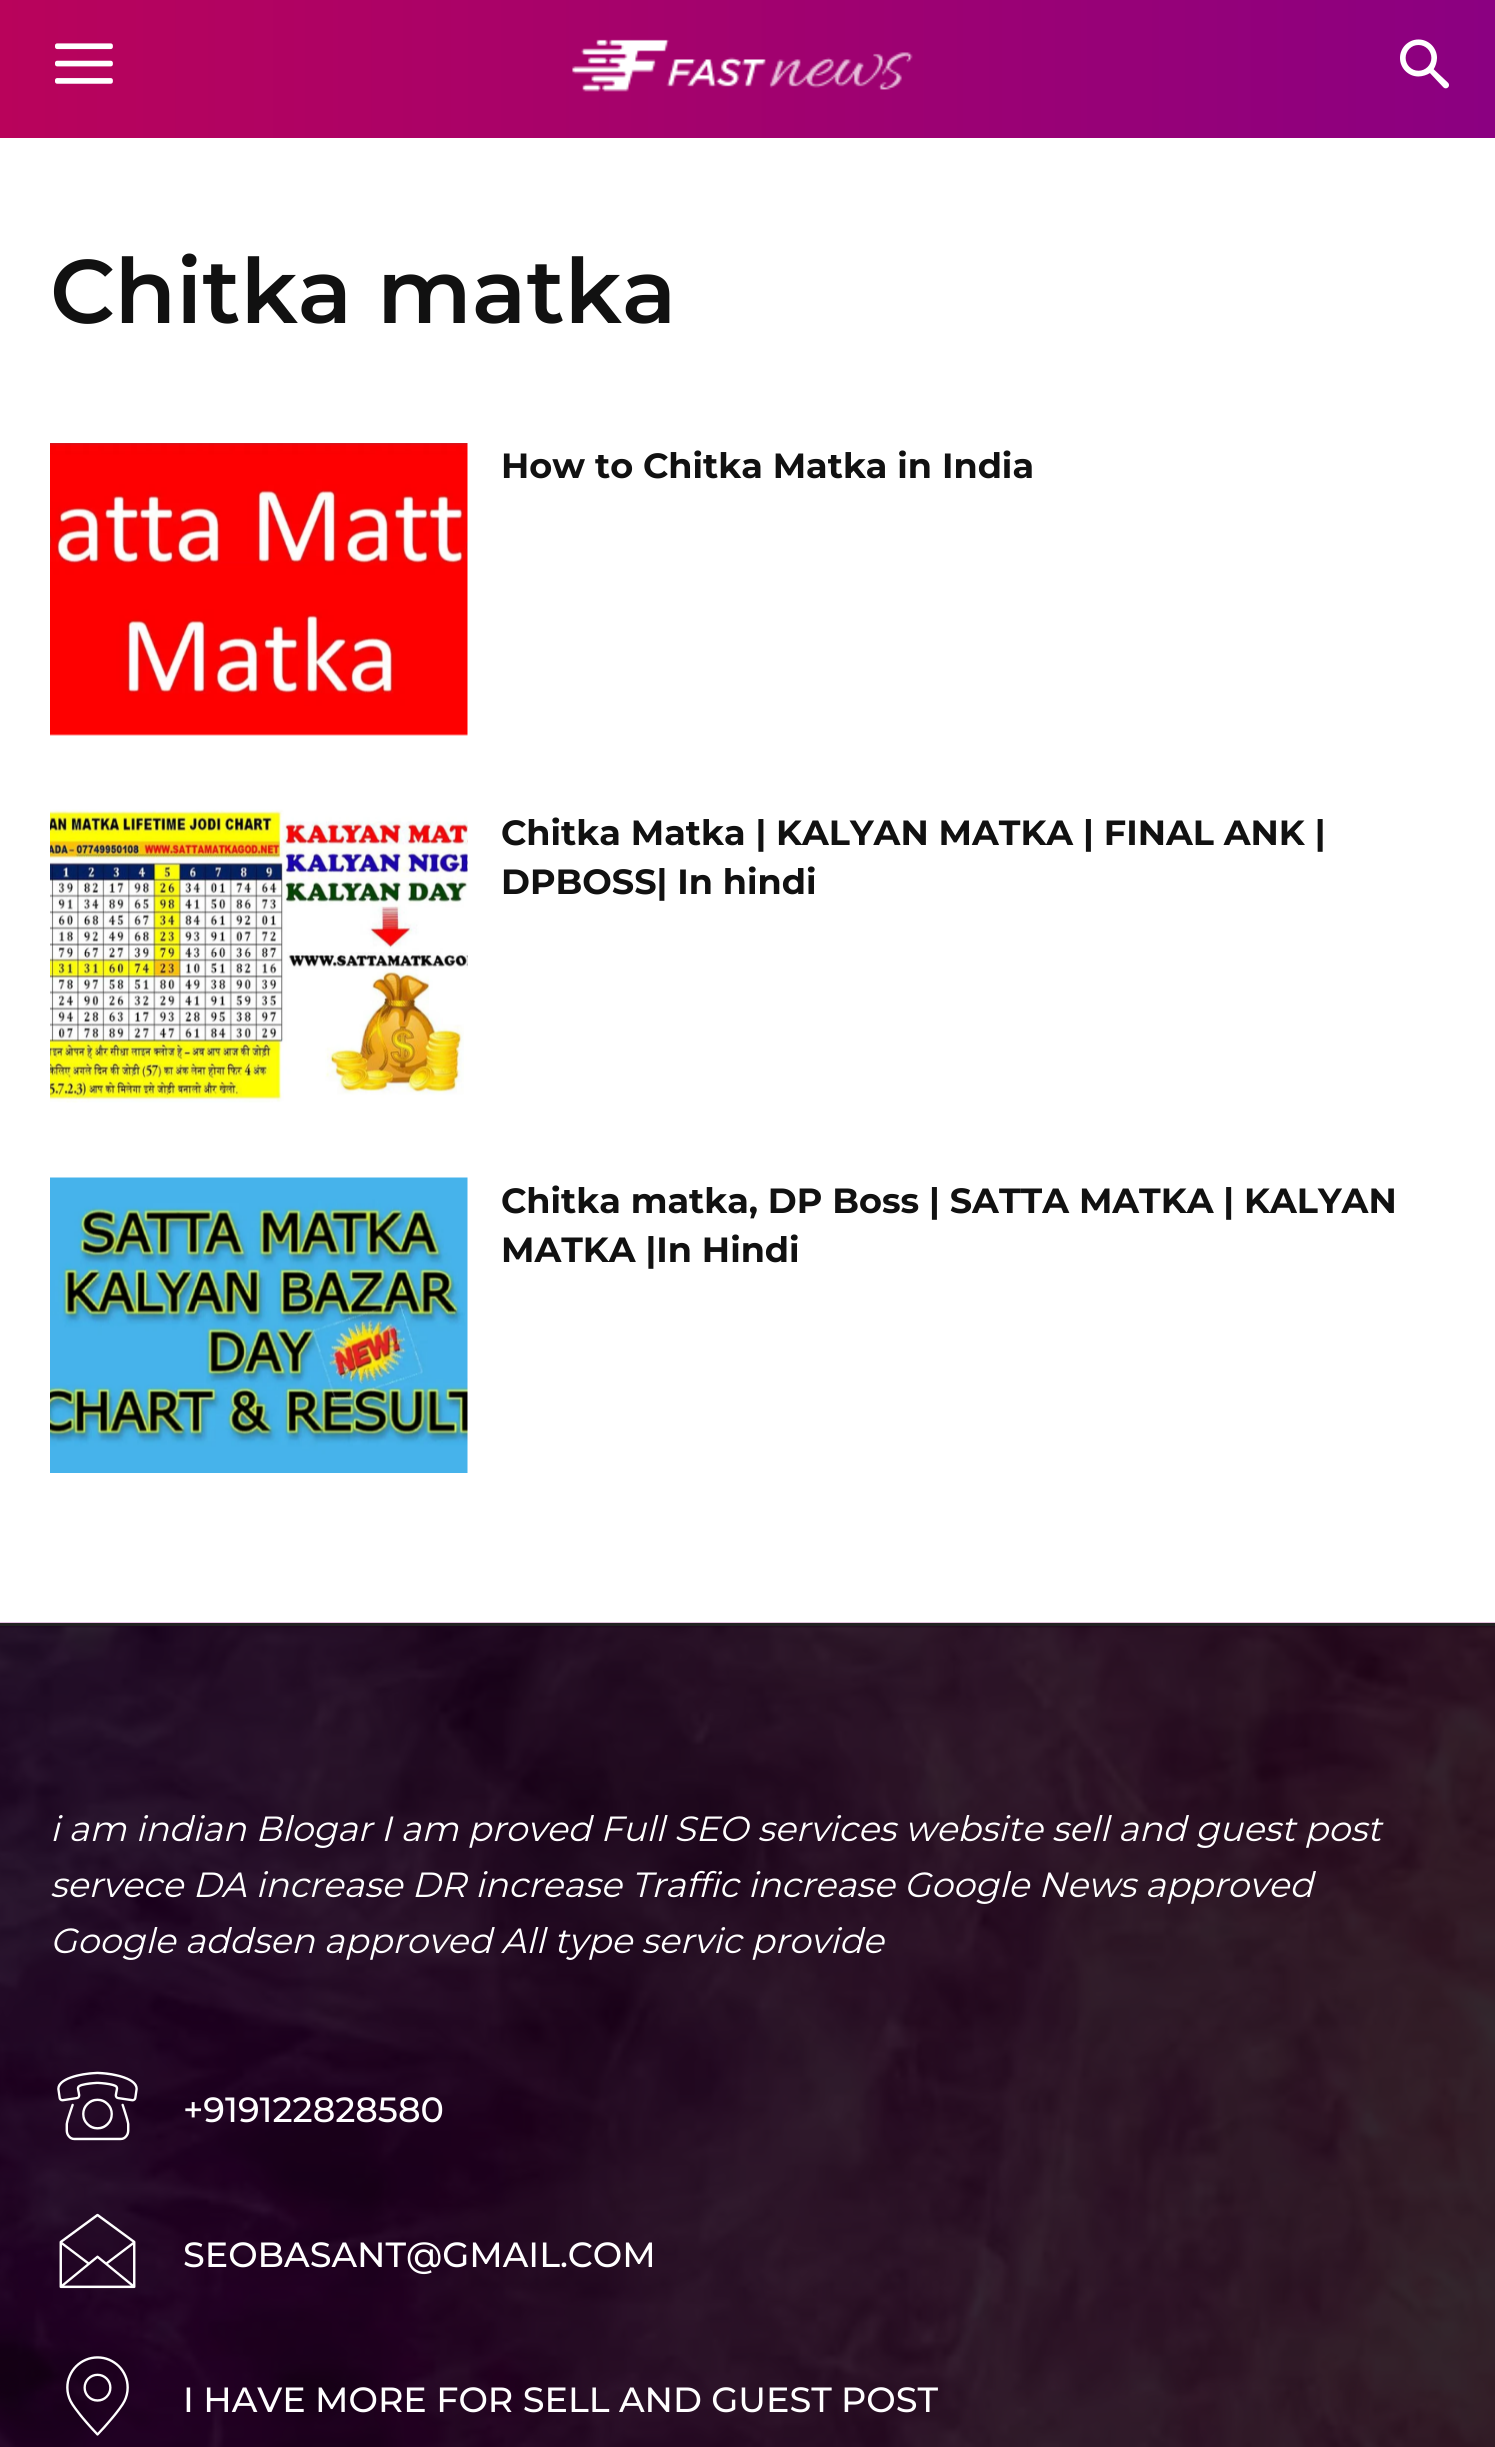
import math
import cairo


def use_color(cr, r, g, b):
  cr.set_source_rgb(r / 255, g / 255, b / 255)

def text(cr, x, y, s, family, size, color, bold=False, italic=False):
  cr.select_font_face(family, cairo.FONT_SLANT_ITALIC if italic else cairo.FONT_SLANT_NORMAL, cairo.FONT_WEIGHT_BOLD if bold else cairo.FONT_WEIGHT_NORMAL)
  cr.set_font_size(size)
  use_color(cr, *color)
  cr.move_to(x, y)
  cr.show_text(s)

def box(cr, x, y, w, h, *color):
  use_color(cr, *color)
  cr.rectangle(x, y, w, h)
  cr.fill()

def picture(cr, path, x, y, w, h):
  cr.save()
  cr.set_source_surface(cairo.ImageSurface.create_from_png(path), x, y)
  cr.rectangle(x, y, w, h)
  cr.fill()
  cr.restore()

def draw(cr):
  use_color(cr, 255, 255, 255)
  cr.paint()
  gradient = cairo.LinearGradient(0, 69, 1495, 69)
  gradient.add_color_stop_rgba(0, 0.725, 0.012, 0.357, 1)
  gradient.add_color_stop_rgba(1, 0.545, 0, 0.506, 1)
  cr.set_source(gradient)
  cr.rectangle(0, 0, 1495, 138)
  cr.fill()
  picture(cr, "img_01.png", 55, 43, 58, 41)
  picture(cr, "img_02.png", 572, 39, 341, 53)
  picture(cr, "img_03.png", 1400, 39, 49, 50)
  picture(cr, "img_04.png", 50, 443, 418, 293)
  picture(cr, "img_05.png", 50, 809, 418, 294)
  picture(cr, "img_06.png", 50, 1177, 418, 296)
  picture(cr, "img_07.png", 0, 1622, 1495, 825)
  box(cr, 0, 1623, 1495, 3, 34, 34, 34)
  picture(cr, "img_08.png", 57, 2071, 81, 70)
  picture(cr, "img_09.png", 59, 2213, 77, 76)
  picture(cr, "img_10.png", 66, 2356, 63, 80)
  text(cr, 50, 323, "Chitka matka", "Montserrat SemiBold", 90, (17, 17, 17))
  text(cr, 501, 478, "How to Chitka Matka in India", "Montserrat", 35, (17, 17, 17), bold=True)
  text(cr, 501, 845, "Chitka Matka | KALYAN MATKA | FINAL ANK |", "Montserrat", 35, (17, 17, 17), bold=True)
  text(cr, 501, 894, "DPBOSS| In hindi", "Montserrat", 35, (17, 17, 17), bold=True)
  text(cr, 501, 1213, "Chitka matka, DP Boss | SATTA MATKA | KALYAN", "Montserrat", 35, (17, 17, 17), bold=True)
  text(cr, 501, 1262, "MATKA |In Hindi", "Montserrat", 35, (17, 17, 17), bold=True)
  text(cr, 50, 1841, "i am indian Blogar I am proved Full SEO services website sell and guest post", "Montserrat", 35, (255, 255, 255), italic=True)
  text(cr, 50, 1897, "servece DA increase DR increase Traffic increase Google News approved", "Montserrat", 35, (255, 255, 255), italic=True)
  text(cr, 50, 1953, "Google addsen approved All type servic provide", "Montserrat", 35, (255, 255, 255), italic=True)
  text(cr, 183, 2122, "+919122828580", "Montserrat Medium", 35, (255, 255, 255))
  text(cr, 183, 2267, "SEOBASANT@GMAIL.COM", "Montserrat Medium", 35, (255, 255, 255))
  text(cr, 183, 2412, "I HAVE MORE FOR SELL AND GUEST POST", "Montserrat Medium", 35, (255, 255, 255))


surface = cairo.ImageSurface(cairo.FORMAT_RGB24, 1495, 2447)
cr = cairo.Context(surface)
options = cairo.FontOptions()
options.set_hint_metrics(cairo.HINT_METRICS_OFF)
options.set_hint_style(cairo.HINT_STYLE_NONE)
cr.set_font_options(options)
cr.set_miter_limit(4)
draw(cr)
surface.write_to_png("out.png")
